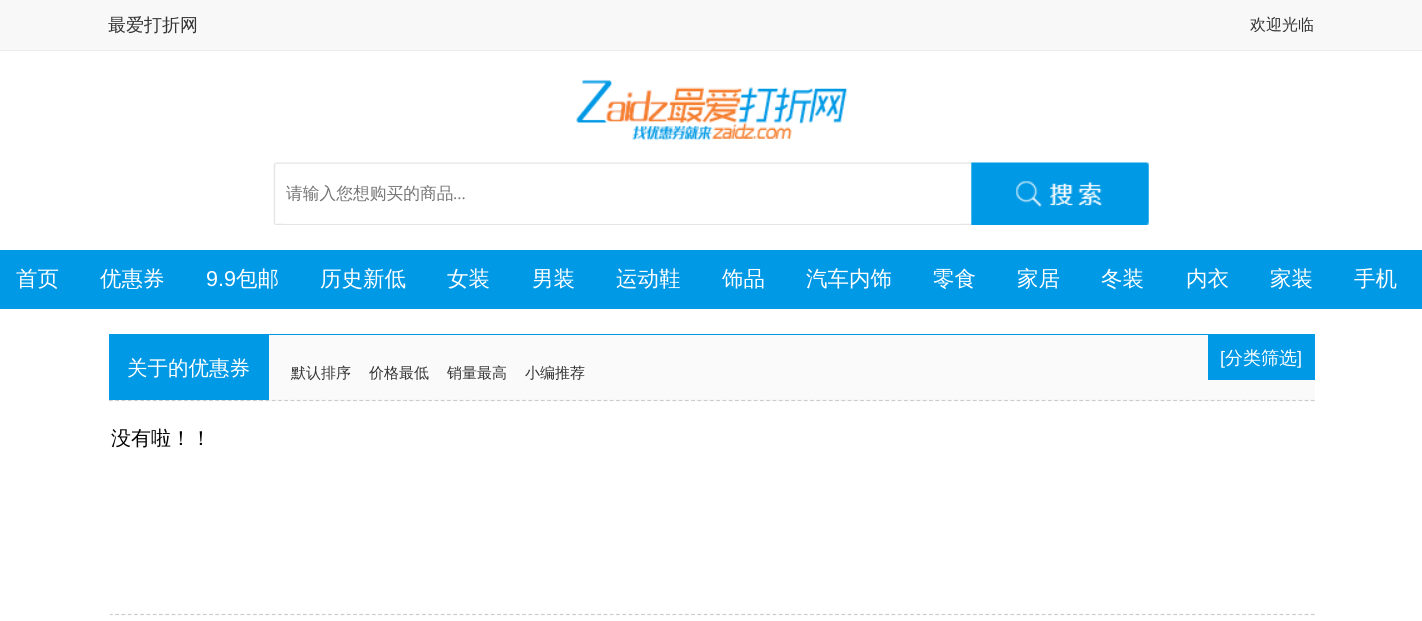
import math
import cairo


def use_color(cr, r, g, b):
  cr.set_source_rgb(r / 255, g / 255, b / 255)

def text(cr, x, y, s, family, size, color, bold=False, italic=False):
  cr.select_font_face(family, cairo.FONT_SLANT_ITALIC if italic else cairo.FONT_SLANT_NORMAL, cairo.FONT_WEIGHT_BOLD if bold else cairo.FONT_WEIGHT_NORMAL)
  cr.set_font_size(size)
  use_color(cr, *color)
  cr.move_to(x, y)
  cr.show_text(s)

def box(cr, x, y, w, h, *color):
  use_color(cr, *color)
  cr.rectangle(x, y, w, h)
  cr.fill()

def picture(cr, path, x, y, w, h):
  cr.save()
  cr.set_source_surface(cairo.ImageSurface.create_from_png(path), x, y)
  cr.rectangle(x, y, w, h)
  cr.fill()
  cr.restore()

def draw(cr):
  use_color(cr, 255, 255, 255)
  cr.paint()
  box(cr, 0, 0, 1422, 50, 248, 248, 248)
  box(cr, 0, 50, 1422, 1, 235, 235, 235)
  picture(cr, "img_01.png", 576, 79, 272, 62)
  picture(cr, "img_02.png", 273, 162, 876, 63)
  box(cr, 286, 223, 675, 1, 255, 255, 255)
  box(cr, 0, 250, 1422, 59, 0, 153, 229)
  box(cr, 112, 335, 1203, 66, 250, 250, 250)
  box(cr, 109, 334, 1206, 1, 0, 153, 229)
  cr.new_path()
  cr.move_to(109, 400.5)
  cr.line_to(1315, 400.5)
  use_color(cr, 204, 204, 204)
  cr.set_line_width(1.2)
  cr.set_dash([3.75, 2.51])
  cr.stroke()
  box(cr, 109, 335, 160, 65, 0, 153, 229)
  box(cr, 1208, 335, 107, 45, 0, 153, 229)
  cr.new_path()
  cr.move_to(109, 614.5)
  cr.line_to(1315, 614.5)
  use_color(cr, 204, 204, 204)
  cr.stroke()
  use_color(cr, 255, 255, 255)
  cr.new_path()
  cr.move_to(109, 615)
  cr.line_to(109, 414)
  cr.line_to(111, 414)
  cr.line_to(111, 614)
  cr.close_path()
  cr.fill()
  text(cr, 108, 31, "最爱打折网", "WenQuanYi Zen Hei Medium", 18, (51, 51, 51))
  text(cr, 1250, 30, "欢迎光临", "WenQuanYi Zen Hei Medium", 16, (51, 51, 51))
  text(cr, 286, 199, "请输入您想购买的商品", "WenQuanYi Zen Hei Medium", 16.75, (117, 117, 117))
  text(cr, 453, 199, "...", "Liberation Serif", 16.75, (117, 117, 117))
  text(cr, 16, 286, "首页", "WenQuanYi Zen Hei Medium", 21.5, (255, 255, 255))
  text(cr, 100, 286, "优惠券", "WenQuanYi Zen Hei Medium", 21.5, (255, 255, 255))
  text(cr, 206, 286, "9.9", "Liberation Sans", 21.5, (255, 255, 255))
  text(cr, 236, 286, "包邮", "WenQuanYi Zen Hei Medium", 21.5, (255, 255, 255))
  text(cr, 320, 286, "历史新低", "WenQuanYi Zen Hei Medium", 21.5, (255, 255, 255))
  text(cr, 447, 286, "女装", "WenQuanYi Zen Hei Medium", 21.5, (255, 255, 255))
  text(cr, 532, 286, "男装", "WenQuanYi Zen Hei Medium", 21.5, (255, 255, 255))
  text(cr, 616, 286, "运动鞋", "WenQuanYi Zen Hei Medium", 21.5, (255, 255, 255))
  text(cr, 722, 286, "饰品", "WenQuanYi Zen Hei Medium", 21.5, (255, 255, 255))
  text(cr, 806, 286, "汽车内饰", "WenQuanYi Zen Hei Medium", 21.5, (255, 255, 255))
  text(cr, 933, 286, "零食", "WenQuanYi Zen Hei Medium", 21.5, (255, 255, 255))
  text(cr, 1017, 286, "家居", "WenQuanYi Zen Hei Medium", 21.5, (255, 255, 255))
  text(cr, 1101, 286, "冬装", "WenQuanYi Zen Hei Medium", 21.5, (255, 255, 255))
  text(cr, 1186, 286, "内衣", "WenQuanYi Zen Hei Medium", 21.5, (255, 255, 255))
  text(cr, 1270, 286, "家装", "WenQuanYi Zen Hei Medium", 21.5, (255, 255, 255))
  text(cr, 1354, 286, "手机", "WenQuanYi Zen Hei Medium", 21.5, (255, 255, 255))
  text(cr, 127, 375, "关于的优惠券", "WenQuanYi Zen Hei Medium", 20.5, (255, 255, 255))
  text(cr, 291, 378, "默认排序", "WenQuanYi Zen Hei Medium", 15, (51, 51, 51))
  text(cr, 369, 378, "价格最低", "WenQuanYi Zen Hei Medium", 15, (51, 51, 51))
  text(cr, 447, 378, "销量最高", "WenQuanYi Zen Hei Medium", 15, (51, 51, 51))
  text(cr, 525, 378, "小编推荐", "WenQuanYi Zen Hei Medium", 15, (51, 51, 51))
  text(cr, 1220, 364, "[", "Liberation Sans", 18, (255, 255, 255))
  text(cr, 1225, 364, "分类筛选", "WenQuanYi Zen Hei Medium", 18, (255, 255, 255))
  text(cr, 1297, 364, "]", "Liberation Sans", 18, (255, 255, 255))
  text(cr, 111, 445, "没有啦！！", "WenQuanYi Zen Hei Medium", 20, (0, 0, 0))


surface = cairo.ImageSurface(cairo.FORMAT_RGB24, 1422, 621)
cr = cairo.Context(surface)
options = cairo.FontOptions()
options.set_hint_metrics(cairo.HINT_METRICS_OFF)
options.set_hint_style(cairo.HINT_STYLE_NONE)
cr.set_font_options(options)
cr.set_miter_limit(4)
draw(cr)
surface.write_to_png("out.png")
